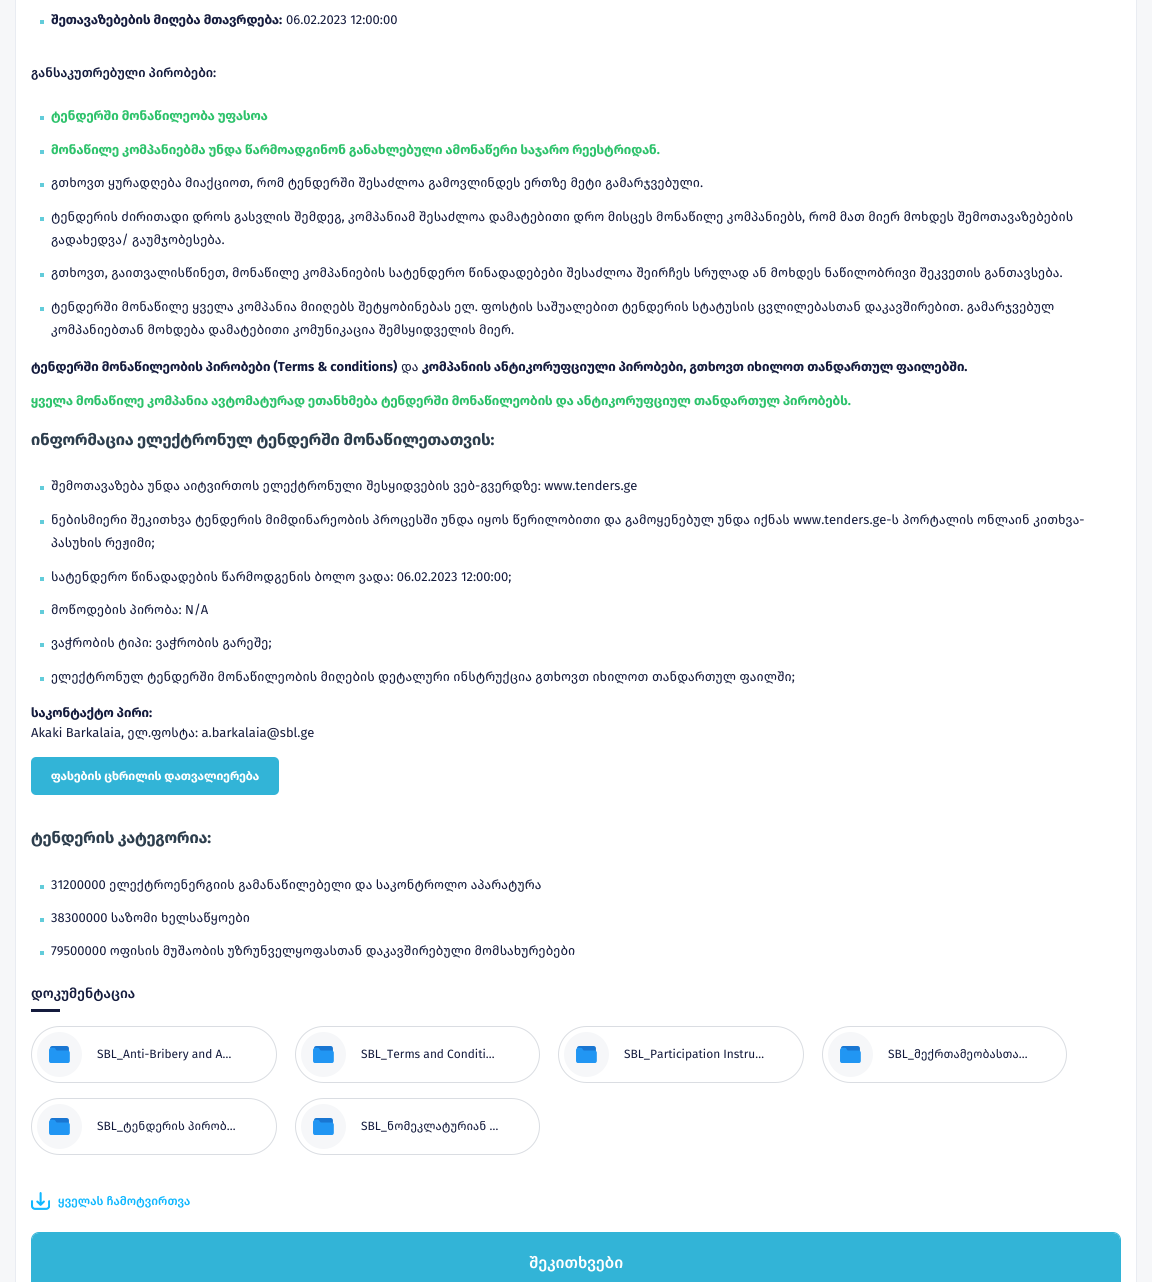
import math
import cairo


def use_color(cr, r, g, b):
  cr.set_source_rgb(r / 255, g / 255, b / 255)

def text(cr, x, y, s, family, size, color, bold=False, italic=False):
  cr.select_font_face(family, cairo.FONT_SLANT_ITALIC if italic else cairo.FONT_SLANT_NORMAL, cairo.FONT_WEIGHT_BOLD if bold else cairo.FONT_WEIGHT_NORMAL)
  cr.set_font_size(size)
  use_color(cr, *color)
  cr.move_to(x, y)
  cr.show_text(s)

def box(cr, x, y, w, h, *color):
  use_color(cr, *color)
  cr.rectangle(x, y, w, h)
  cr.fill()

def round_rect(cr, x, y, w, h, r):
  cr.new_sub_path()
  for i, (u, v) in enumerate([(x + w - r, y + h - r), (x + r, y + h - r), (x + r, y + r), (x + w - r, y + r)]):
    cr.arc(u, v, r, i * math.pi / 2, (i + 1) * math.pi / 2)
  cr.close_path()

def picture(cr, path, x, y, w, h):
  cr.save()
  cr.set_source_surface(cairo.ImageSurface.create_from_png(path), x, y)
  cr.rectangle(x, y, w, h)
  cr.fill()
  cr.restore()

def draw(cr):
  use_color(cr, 246, 247, 249)
  cr.paint()
  use_color(cr, 255, 255, 255)
  cr.rectangle(15.5, -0.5, 1121, 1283)
  cr.fill_preserve()
  use_color(cr, 233, 236, 242)
  cr.set_line_width(1)
  cr.stroke()
  box(cr, 40, 20, 4, 4, 98, 204, 218)
  box(cr, 40, 116, 4, 4, 98, 204, 218)
  box(cr, 40, 150, 4, 4, 98, 204, 218)
  box(cr, 40, 183, 4, 4, 98, 204, 218)
  box(cr, 40, 217, 4, 4, 98, 204, 218)
  box(cr, 40, 273, 4, 4, 98, 204, 218)
  box(cr, 40, 307, 4, 4, 98, 204, 218)
  box(cr, 40, 486, 4, 4, 98, 204, 218)
  box(cr, 40, 520, 4, 4, 98, 204, 218)
  box(cr, 40, 577, 4, 4, 98, 204, 218)
  box(cr, 40, 610, 4, 4, 98, 204, 218)
  box(cr, 40, 643, 4, 4, 98, 204, 218)
  box(cr, 40, 677, 4, 4, 98, 204, 218)
  use_color(cr, 50, 180, 215)
  round_rect(cr, 31, 757, 248, 38, 5)
  cr.fill()
  box(cr, 40, 885, 4, 4, 98, 204, 218)
  box(cr, 40, 918, 4, 4, 98, 204, 218)
  box(cr, 40, 951, 4, 4, 98, 204, 218)
  box(cr, 31, 1009, 29, 3, 20, 27, 61)
  round_rect(cr, 31.5, 1026.5, 245, 56, 28)
  use_color(cr, 218, 221, 226)
  cr.stroke()
  use_color(cr, 246, 247, 249)
  cr.arc(59.5, 1054.5, 22.5, 0, 2 * math.pi)
  cr.fill()
  picture(cr, "img_01.png", 49, 1046, 21, 17)
  round_rect(cr, 295.5, 1026.5, 244, 56, 28)
  use_color(cr, 218, 221, 226)
  cr.stroke()
  use_color(cr, 246, 247, 249)
  cr.arc(323.5, 1054.5, 22.5, 0, 2 * math.pi)
  cr.fill()
  picture(cr, "img_01.png", 313, 1046, 21, 17)
  round_rect(cr, 558.5, 1026.5, 245, 56, 28)
  use_color(cr, 218, 221, 226)
  cr.stroke()
  use_color(cr, 246, 247, 249)
  cr.arc(586.5, 1054.5, 22.5, 0, 2 * math.pi)
  cr.fill()
  picture(cr, "img_01.png", 576, 1046, 21, 17)
  round_rect(cr, 822.5, 1026.5, 244, 56, 28)
  use_color(cr, 218, 221, 226)
  cr.stroke()
  use_color(cr, 246, 247, 249)
  cr.arc(850.5, 1054.5, 22.5, 0, 2 * math.pi)
  cr.fill()
  picture(cr, "img_01.png", 840, 1046, 21, 17)
  round_rect(cr, 31.5, 1098.5, 245, 56, 28)
  use_color(cr, 218, 221, 226)
  cr.stroke()
  use_color(cr, 246, 247, 249)
  cr.arc(59.5, 1126.5, 22.5, 0, 2 * math.pi)
  cr.fill()
  picture(cr, "img_01.png", 49, 1118, 21, 17)
  round_rect(cr, 295.5, 1098.5, 244, 56, 28)
  use_color(cr, 218, 221, 226)
  cr.stroke()
  use_color(cr, 246, 247, 249)
  cr.arc(323.5, 1126.5, 22.5, 0, 2 * math.pi)
  cr.fill()
  picture(cr, "img_01.png", 313, 1118, 21, 17)
  picture(cr, "img_02.png", 31, 1192, 19, 18)
  round_rect(cr, 31.5, 1232.5, 1089, 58, 7.5)
  use_color(cr, 50, 180, 215)
  cr.stroke()
  cr.new_path()
  cr.move_to(39, 1233)
  cr.line_to(1113, 1233)
  cr.curve_to(1117, 1233, 1120, 1236, 1120, 1240)
  cr.line_to(1120, 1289)
  cr.line_to(32, 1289)
  cr.line_to(32, 1240)
  cr.curve_to(32, 1236, 35, 1233, 39, 1233)
  cr.close_path()
  cr.fill()
  text(cr, 51, 24, "შეთავაზებების მიღება მთავრდება:", "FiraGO", 13, (20, 27, 61), bold=True)
  text(cr, 286, 24, "06.02.2023 12:00:00", "FiraGO", 13, (20, 27, 61))
  text(cr, 31, 77, "განსაკუთრებული პირობები:", "FiraGO Medium", 13, (20, 27, 61))
  text(cr, 51, 120, "ტენდერში მონაწილეობა უფასოა", "FiraGO", 13, (45, 194, 107), bold=True)
  text(cr, 51, 154, "მონაწილე კომპანიებმა უნდა წარმოადგინონ განახლებული ამონაწერი საჯარო რეესტრიდან.", "FiraGO", 13, (45, 194, 107), bold=True)
  text(cr, 51, 187, "გთხოვთ ყურადღება მიაქციოთ, რომ ტენდერში შესაძლოა გამოვლინდეს ერთზე მეტი გამარჯვებული.", "FiraGO", 13, (20, 27, 61))
  text(cr, 51, 221, "ტენდერის ძირითადი დროს გასვლის შემდეგ, კომპანიამ შესაძლოა დამატებითი დრო მისცეს მონაწილე კომპანიებს, რომ მათ მიერ მოხდეს შემოთავაზებების", "FiraGO", 13, (20, 27, 61))
  text(cr, 51, 244, "გადახედვა/ გაუმჯობესება.", "FiraGO", 13, (20, 27, 61))
  text(cr, 51, 277, "გთხოვთ, გაითვალისწინეთ, მონაწილე კომპანიების სატენდერო წინადადებები შესაძლოა შეირჩეს სრულად ან მოხდეს ნაწილობრივი შეკვეთის განთავსება.", "FiraGO", 13, (20, 27, 61))
  text(cr, 51, 311, "ტენდერში მონაწილე ყველა კომპანია მიიღებს შეტყობინებას ელ. ფოსტის საშუალებით ტენდერის სტატუსის ცვლილებასთან დაკავშირებით. გამარჯვებულ", "FiraGO", 13, (20, 27, 61))
  text(cr, 51, 334, "კომპანიებთან მოხდება დამატებითი კომუნიკაცია შემსყიდველის მიერ.", "FiraGO", 13, (20, 27, 61))
  text(cr, 31, 371, "ტენდერში მონაწილეობის პირობები (Тerms & conditions)", "FiraGO", 13, (20, 27, 61), bold=True)
  text(cr, 401, 371, "და", "FiraGO", 13, (20, 27, 61))
  text(cr, 422, 371, "კომპანიის ანტიკორუფციული პირობები, გთხოვთ იხილოთ თანდართულ ფაილებში.", "FiraGO", 13, (20, 27, 61), bold=True)
  text(cr, 31, 405, "ყველა მონაწილე კომპანია ავტომატურად ეთანხმება ტენდერში მონაწილეობის და ანტიკორუფციულ თანდართულ პირობებს.", "FiraGO", 13, (45, 194, 107), bold=True)
  text(cr, 31, 445, "ინფორმაცია ელექტრონულ ტენდერში მონაწილეთათვის:", "FiraGO", 16, (45, 62, 77), bold=True)
  text(cr, 51, 490, "შემოთავაზება უნდა აიტვირთოს ელექტრონული შესყიდვების ვებ-გვერდზე: www.tenders.ge", "FiraGO", 13, (20, 27, 61))
  text(cr, 51, 524, "ნებისმიერი შეკითხვა ტენდერის მიმდინარეობის პროცესში უნდა იყოს წერილობითი და გამოყენებულ უნდა იქნას www.tenders.ge-ს პორტალის ონლაინ კითხვა-", "FiraGO", 13, (20, 27, 61))
  text(cr, 51, 547, "პასუხის რეჟიმი;", "FiraGO", 13, (20, 27, 61))
  text(cr, 51, 581, "სატენდერო წინადადების წარმოდგენის ბოლო ვადა: 06.02.2023 12:00:00;", "FiraGO", 13, (20, 27, 61))
  text(cr, 51, 614, "მოწოდების პირობა: N/A", "FiraGO", 13, (20, 27, 61))
  text(cr, 51, 647, "ვაჭრობის ტიპი: ვაჭრობის გარეშე;", "FiraGO", 13, (20, 27, 61))
  text(cr, 51, 681, "ელექტრონულ ტენდერში მონაწილეობის მიღების დეტალური ინსტრუქცია გთხოვთ იხილოთ თანდართულ ფაილში;", "FiraGO", 13, (20, 27, 61))
  text(cr, 31, 717, "საკონტაქტო პირი:", "FiraGO", 13, (20, 27, 61), bold=True)
  text(cr, 31, 737, "Akaki Barkalaia, ელ.ფოსტა: a.barkalaia@sbl.ge", "FiraGO", 13, (20, 27, 61))
  text(cr, 51, 780, "ფასების ცხრილის დათვალიერება", "FiraGO", 12, (255, 255, 255), bold=True)
  text(cr, 31, 843, "ტენდერის კატეგორია:", "FiraGO", 16, (45, 62, 77), bold=True)
  text(cr, 51, 889, "31200000 ელექტროენერგიის გამანაწილებელი და საკონტროლო აპარატურა", "FiraGO", 13, (20, 27, 61))
  text(cr, 51, 922, "38300000 საზომი ხელსაწყოები", "FiraGO", 13, (20, 27, 61))
  text(cr, 51, 955, "79500000 ოფისის მუშაობის უზრუნველყოფასთან დაკავშირებული მომსახურებები", "FiraGO", 13, (20, 27, 61))
  text(cr, 31, 998, "დოკუმენტაცია", "FiraGO Medium", 14, (20, 27, 61))
  text(cr, 97, 1058, "SBL_Anti-Bribery and A…", "FiraGO", 12, (20, 27, 61))
  text(cr, 361, 1058, "SBL_Terms and Conditi…", "FiraGO", 12, (20, 27, 61))
  text(cr, 624, 1058, "SBL_Participation Instru…", "FiraGO", 12, (20, 27, 61))
  text(cr, 888, 1058, "SBL_მექრთამეობასთა…", "FiraGO", 12, (20, 27, 61))
  text(cr, 97, 1130, "SBL_ტენდერის პირობ…", "FiraGO", 12, (20, 27, 61))
  text(cr, 361, 1130, "SBL_ნომეკლატურიან …", "FiraGO", 12, (20, 27, 61))
  text(cr, 58, 1205, "ყველას ჩამოტვირთვა", "FiraGO Medium", 12, (15, 183, 255))
  text(cr, 529, 1268, "შეკითხვები", "FiraGO Medium", 16, (255, 255, 255))


surface = cairo.ImageSurface(cairo.FORMAT_RGB24, 1152, 1282)
cr = cairo.Context(surface)
options = cairo.FontOptions()
options.set_hint_metrics(cairo.HINT_METRICS_OFF)
options.set_hint_style(cairo.HINT_STYLE_NONE)
cr.set_font_options(options)
cr.set_miter_limit(4)
draw(cr)
surface.write_to_png("out.png")
